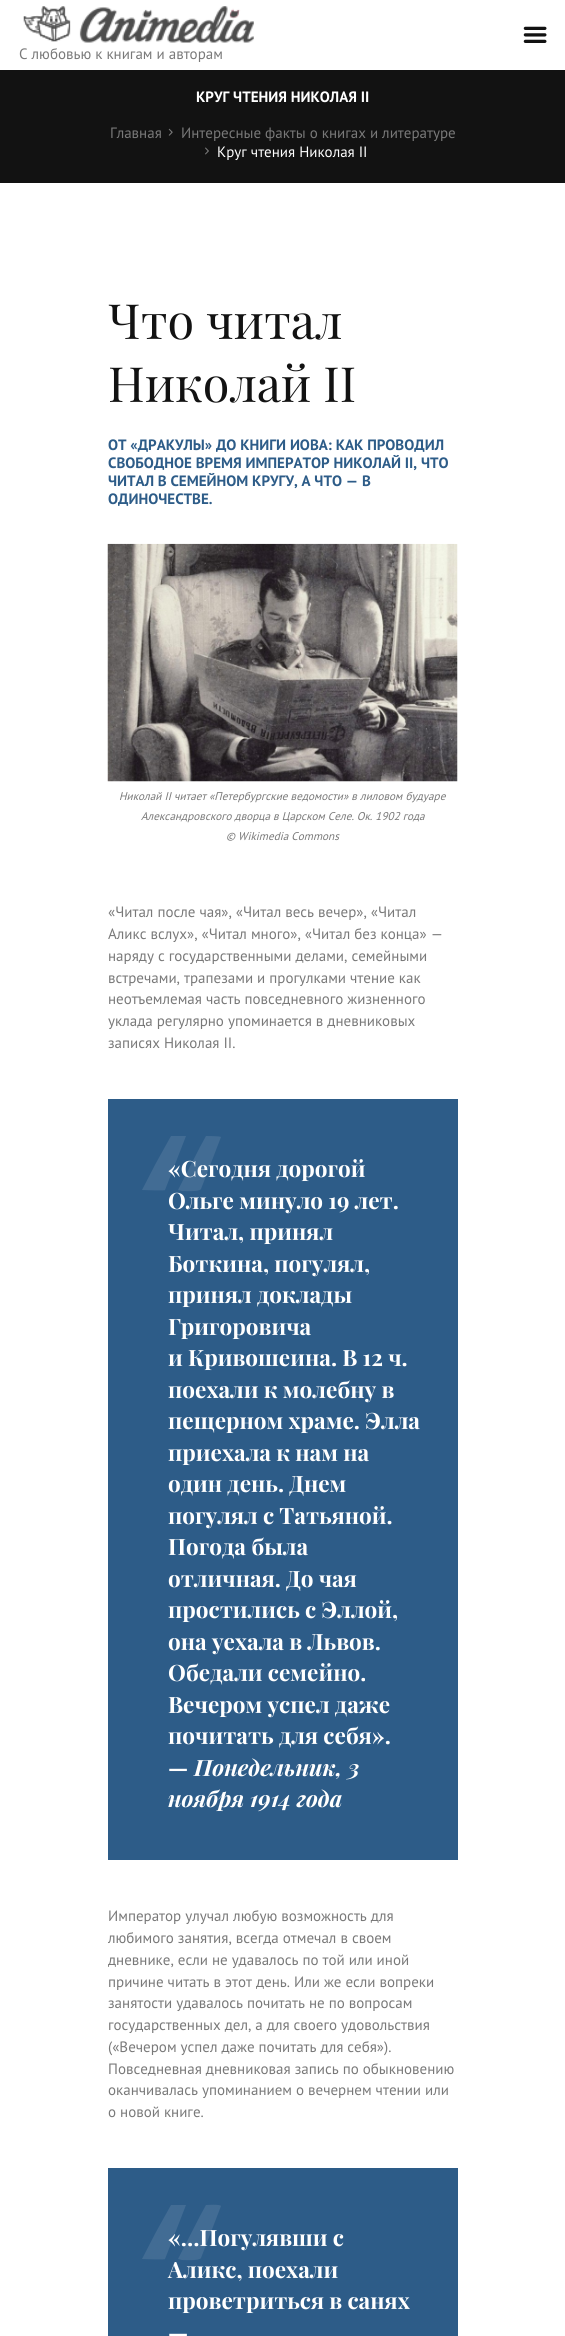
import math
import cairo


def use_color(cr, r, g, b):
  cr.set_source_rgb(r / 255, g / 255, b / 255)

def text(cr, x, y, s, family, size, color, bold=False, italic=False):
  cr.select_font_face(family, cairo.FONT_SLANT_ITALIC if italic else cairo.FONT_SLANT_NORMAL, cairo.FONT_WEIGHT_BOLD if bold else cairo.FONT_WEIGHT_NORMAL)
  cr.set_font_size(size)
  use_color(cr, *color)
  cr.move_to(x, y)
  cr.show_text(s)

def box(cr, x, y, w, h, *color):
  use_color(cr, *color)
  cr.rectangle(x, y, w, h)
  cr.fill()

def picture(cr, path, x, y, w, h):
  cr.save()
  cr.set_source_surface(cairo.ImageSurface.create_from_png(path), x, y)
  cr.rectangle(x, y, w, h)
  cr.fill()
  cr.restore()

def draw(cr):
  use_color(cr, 255, 255, 255)
  cr.paint()
  picture(cr, "img_01.png", 523, 26, 24, 17)
  picture(cr, "img_02.png", 23, 6, 231, 37)
  box(cr, 0, 70, 565, 113, 18, 18, 18)
  picture(cr, "img_03.png", 168, 128, 5, 8)
  picture(cr, "img_04.png", 205, 147, 4, 8)
  picture(cr, "img_05.png", 107, 543, 351, 239)
  box(cr, 108, 1099, 350, 761, 45, 92, 136)
  use_color(cr, 66, 108, 148)
  cr.new_path()
  cr.move_to(156, 1163)
  cr.line_to(142, 1190)
  cr.curve_to(145, 1190, 165, 1191, 165, 1190)
  cr.line_to(186, 1136)
  cr.line_to(171, 1136)
  cr.close_path()
  cr.move_to(200, 1147)
  cr.line_to(178, 1190)
  cr.line_to(182, 1191)
  cr.curve_to(185, 1191, 199, 1192, 201, 1189)
  cr.line_to(221, 1137)
  cr.curve_to(220, 1136, 207, 1136, 206, 1136)
  cr.close_path()
  cr.fill()
  box(cr, 108, 2168, 350, 168, 45, 92, 136)
  use_color(cr, 66, 108, 148)
  cr.new_path()
  cr.move_to(156, 2232)
  cr.line_to(142, 2259)
  cr.curve_to(145, 2259, 165, 2260, 165, 2259)
  cr.line_to(186, 2205)
  cr.line_to(171, 2205)
  cr.close_path()
  cr.move_to(200, 2216)
  cr.line_to(178, 2259)
  cr.line_to(182, 2260)
  cr.curve_to(185, 2260, 199, 2261, 201, 2258)
  cr.line_to(221, 2206)
  cr.curve_to(220, 2204, 207, 2205, 206, 2205)
  cr.close_path()
  cr.fill()
  text(cr, 19, 59, "С любовью к книгам и авторам", "PT Sans", 15, (121, 121, 121))
  text(cr, 196, 102, "КРУГ ЧТЕНИЯ НИКОЛАЯ II", "PT Sans", 15, (255, 255, 255), bold=True)
  text(cr, 110, 138, "Главная", "PT Sans", 15, (121, 121, 121))
  text(cr, 181, 138, "Интересные факты о книгах и литературе", "PT Sans", 15, (121, 121, 121))
  text(cr, 217, 157, "Круг чтения Николая II", "PT Sans", 15, (255, 255, 255))
  text(cr, 108, 339, "Что читал", "Playfair Display", 48.5, (18, 18, 18))
  text(cr, 108, 402, "Николай II", "Playfair Display", 48.5, (18, 18, 18))
  text(cr, 108, 450, "ОТ «ДРАКУЛЫ» ДО КНИГИ ИОВА: КАК ПРОВОДИЛ", "PT Sans", 15, (45, 92, 136), bold=True)
  text(cr, 108, 468, "СВОБОДНОЕ ВРЕМЯ ИМПЕРАТОР НИКОЛАЙ II, ЧТО", "PT Sans", 15, (45, 92, 136), bold=True)
  text(cr, 108, 486, "ЧИТАЛ В СЕМЕЙНОМ КРУГУ, А ЧТО — В", "PT Sans", 15, (45, 92, 136), bold=True)
  text(cr, 108, 504, "ОДИНОЧЕСТВЕ.", "PT Sans", 15, (45, 92, 136), bold=True)
  text(cr, 119, 800, "Николай II читает «Петербургские ведомости» в лиловом будуаре", "PT Sans", 11.25, (121, 121, 121), italic=True)
  text(cr, 141, 820, "Александровского дворца в Царском Селе. Ок. 1902 года", "PT Sans", 11.25, (121, 121, 121), italic=True)
  text(cr, 226, 840, "© Wikimedia Commons", "PT Sans", 11.25, (121, 121, 121), italic=True)
  text(cr, 108, 917, "«Читал после чая», «Читал весь вечер», «Читал", "PT Sans", 15, (121, 121, 121))
  text(cr, 108, 939, "Аликс вслух», «Читал много», «Читал без конца» —", "PT Sans", 15, (121, 121, 121))
  text(cr, 108, 961, "наряду с государственными делами, семейными", "PT Sans", 15, (121, 121, 121))
  text(cr, 108, 983, "встречами, трапезами и прогулками чтение как", "PT Sans", 15, (121, 121, 121))
  text(cr, 108, 1004, "неотъемлемая часть повседневного жизненного", "PT Sans", 15, (121, 121, 121))
  text(cr, 108, 1026, "уклада регулярно упоминается в дневниковых", "PT Sans", 15, (121, 121, 121))
  text(cr, 108, 1048, "записях Николая II.", "PT Sans", 15, (121, 121, 121))
  text(cr, 168, 1177, "«Сегодня дорогой", "Playfair Display", 22.5, (255, 255, 255), bold=True)
  text(cr, 168, 1209, "Ольге минуло 19 лет.", "Playfair Display", 22.5, (255, 255, 255), bold=True)
  text(cr, 168, 1240, "Читал, принял", "Playfair Display", 22.5, (255, 255, 255), bold=True)
  text(cr, 168, 1272, "Боткина, погулял,", "Playfair Display", 22.5, (255, 255, 255), bold=True)
  text(cr, 168, 1303, "принял доклады", "Playfair Display", 22.5, (255, 255, 255), bold=True)
  text(cr, 168, 1335, "Григоровича", "Playfair Display", 22.5, (255, 255, 255), bold=True)
  text(cr, 168, 1366, "и Кривошеина. В 12 ч.", "Playfair Display", 22.5, (255, 255, 255), bold=True)
  text(cr, 168, 1398, "поехали к молебну в", "Playfair Display", 22.5, (255, 255, 255), bold=True)
  text(cr, 168, 1429, "пещерном храме. Элла", "Playfair Display", 22.5, (255, 255, 255), bold=True)
  text(cr, 168, 1461, "приехала к нам на", "Playfair Display", 22.5, (255, 255, 255), bold=True)
  text(cr, 168, 1492, "один день. Днем", "Playfair Display", 22.5, (255, 255, 255), bold=True)
  text(cr, 168, 1524, "погулял с Татьяной.", "Playfair Display", 22.5, (255, 255, 255), bold=True)
  text(cr, 168, 1555, "Погода была", "Playfair Display", 22.5, (255, 255, 255), bold=True)
  text(cr, 168, 1587, "отличная. До чая", "Playfair Display", 22.5, (255, 255, 255), bold=True)
  text(cr, 168, 1618, "простились с Эллой,", "Playfair Display", 22.5, (255, 255, 255), bold=True)
  text(cr, 168, 1650, "она уехала в Львов.", "Playfair Display", 22.5, (255, 255, 255), bold=True)
  text(cr, 168, 1681, "Обедали семейно.", "Playfair Display", 22.5, (255, 255, 255), bold=True)
  text(cr, 168, 1713, "Вечером успел даже", "Playfair Display", 22.5, (255, 255, 255), bold=True)
  text(cr, 168, 1744, "почитать для себя».", "Playfair Display", 22.5, (255, 255, 255), bold=True)
  text(cr, 168, 1776, "—", "Playfair Display", 22.5, (255, 255, 255), bold=True)
  text(cr, 194, 1776, "Понедельник, 3", "Playfair Display", 22.5, (255, 255, 255), bold=True, italic=True)
  text(cr, 168, 1807, "ноября 1914 года", "Playfair Display", 22.5, (255, 255, 255), bold=True, italic=True)
  text(cr, 108, 1921, "Император улучал любую возможность для", "PT Sans", 15, (121, 121, 121))
  text(cr, 108, 1943, "любимого занятия, всегда отмечал в своем", "PT Sans", 15, (121, 121, 121))
  text(cr, 108, 1965, "дневнике, если не удавалось по той или иной", "PT Sans", 15, (121, 121, 121))
  text(cr, 108, 1987, "причине читать в этот день. Или же если вопреки", "PT Sans", 15, (121, 121, 121))
  text(cr, 108, 2008, "занятости удавалось почитать не по вопросам", "PT Sans", 15, (121, 121, 121))
  text(cr, 108, 2030, "государственных дел, а для своего удовольствия", "PT Sans", 15, (121, 121, 121))
  text(cr, 108, 2052, "(«Вечером успел даже почитать для себя»).", "PT Sans", 15, (121, 121, 121))
  text(cr, 108, 2074, "Повседневная дневниковая запись по обыкновению", "PT Sans", 15, (121, 121, 121))
  text(cr, 108, 2095, "оканчивалась упоминанием о вечернем чтении или", "PT Sans", 15, (121, 121, 121))
  text(cr, 108, 2117, "о новой книге.", "PT Sans", 15, (121, 121, 121))
  text(cr, 168, 2246, "«…Погулявши с", "Playfair Display", 22.5, (255, 255, 255), bold=True)
  text(cr, 168, 2278, "Аликс, поехали", "Playfair Display", 22.5, (255, 255, 255), bold=True)
  text(cr, 168, 2309, "проветриться в санях", "Playfair Display", 22.5, (255, 255, 255), bold=True)
  text(cr, 168, 2341, "—", "Playfair Display", 22.5, (255, 255, 255), bold=True)


surface = cairo.ImageSurface(cairo.FORMAT_RGB24, 565, 2336)
cr = cairo.Context(surface)
options = cairo.FontOptions()
options.set_hint_metrics(cairo.HINT_METRICS_OFF)
options.set_hint_style(cairo.HINT_STYLE_NONE)
cr.set_font_options(options)
cr.set_miter_limit(4)
draw(cr)
surface.write_to_png("out.png")
